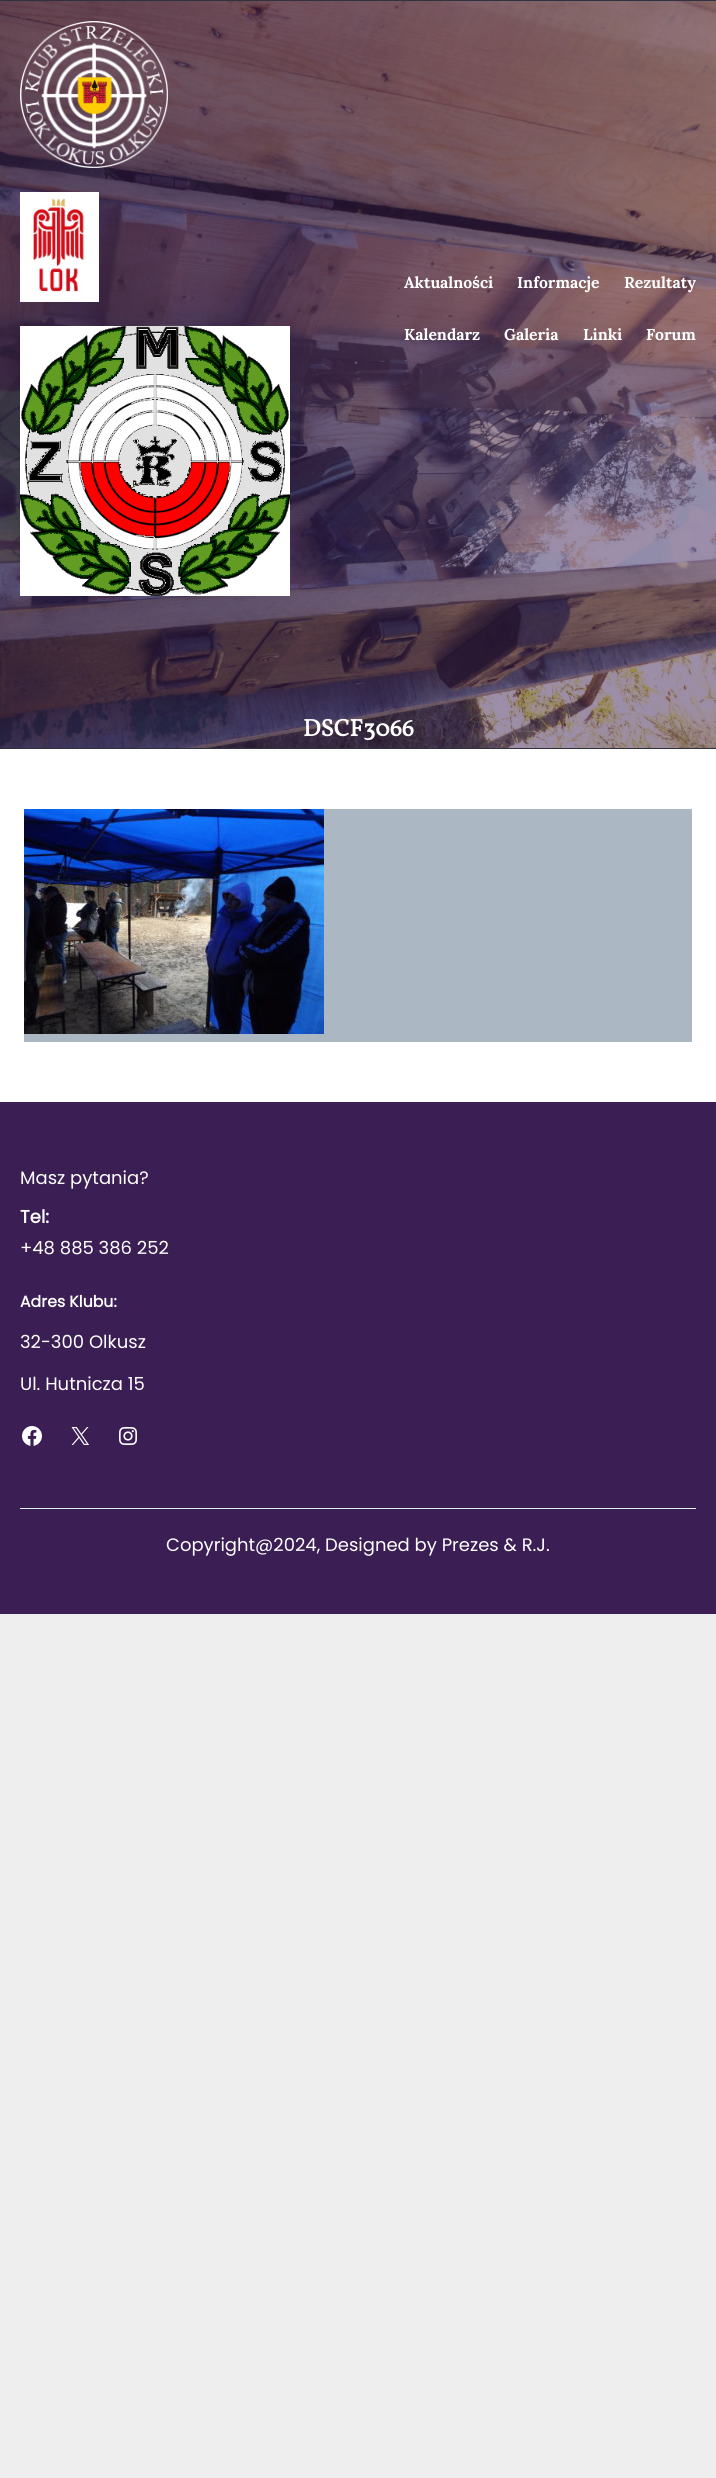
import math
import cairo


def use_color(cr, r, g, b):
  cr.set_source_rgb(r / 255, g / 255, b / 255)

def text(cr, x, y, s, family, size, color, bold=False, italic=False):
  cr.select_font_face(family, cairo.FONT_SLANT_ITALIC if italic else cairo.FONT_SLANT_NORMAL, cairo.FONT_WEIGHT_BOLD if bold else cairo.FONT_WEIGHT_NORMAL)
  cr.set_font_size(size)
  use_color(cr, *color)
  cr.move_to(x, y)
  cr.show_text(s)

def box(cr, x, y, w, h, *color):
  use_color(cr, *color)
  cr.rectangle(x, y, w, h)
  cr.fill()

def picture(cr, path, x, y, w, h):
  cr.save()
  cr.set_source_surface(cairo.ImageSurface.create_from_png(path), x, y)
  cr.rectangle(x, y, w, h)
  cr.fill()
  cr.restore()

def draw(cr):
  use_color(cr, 238, 238, 238)
  cr.paint()
  box(cr, 0, 0, 716, 749, 49, 50, 64)
  picture(cr, "img_01.png", 0, 1, 716, 747)
  picture(cr, "img_02.png", 20, 21, 148, 147)
  picture(cr, "img_03.png", 20, 192, 79, 110)
  picture(cr, "img_04.png", 20, 326, 270, 270)
  box(cr, 0, 749, 716, 353, 255, 255, 255)
  box(cr, 24, 809, 668, 233, 171, 184, 195)
  picture(cr, "img_05.png", 24, 809, 300, 225)
  box(cr, 0, 1102, 716, 512, 59, 30, 84)
  picture(cr, "img_06.png", 22, 1426, 20, 20)
  picture(cr, "img_07.png", 71, 1427, 18, 18)
  picture(cr, "img_08.png", 119, 1427, 18, 18)
  box(cr, 20, 1508, 676, 1, 222, 242, 255)
  text(cr, 404, 288, "Aktualności", "Lora", 15.75, (255, 255, 255), bold=True)
  text(cr, 517, 288, "Informacje", "Lora", 15.75, (255, 255, 255), bold=True)
  text(cr, 624, 288, "Rezultaty", "Lora", 15.75, (255, 255, 255), bold=True)
  text(cr, 404, 340, "Kalendarz", "Lora", 15.75, (255, 255, 255), bold=True)
  text(cr, 504, 340, "Galeria", "Lora", 15.75, (255, 255, 255), bold=True)
  text(cr, 583, 340, "Linki", "Lora", 15.75, (255, 255, 255), bold=True)
  text(cr, 646, 340, "Forum", "Lora", 15.75, (255, 255, 255), bold=True)
  text(cr, 303, 736, "DSCF3066", "Vollkorn", 24, (255, 255, 255), bold=True)
  text(cr, 20, 1184, "Masz pytania?", "Poppins", 18, (255, 255, 255))
  text(cr, 20, 1223, "Tel:", "Poppins", 18, (255, 255, 255), bold=True)
  text(cr, 20, 1254, "+48 885 386 252", "Poppins", 18, (255, 255, 255))
  text(cr, 20, 1307, "Adres Klubu:", "Poppins", 15.75, (255, 255, 255), bold=True)
  text(cr, 20, 1348, "32-300 Olkusz", "Poppins", 18, (255, 255, 255))
  text(cr, 20, 1390, "Ul. Hutnicza 15", "Poppins", 18, (255, 255, 255))
  text(cr, 166, 1551, "Copyright@2024, Designed by Prezes & R.J.", "Poppins", 18, (255, 255, 255))


surface = cairo.ImageSurface(cairo.FORMAT_RGB24, 716, 2478)
cr = cairo.Context(surface)
options = cairo.FontOptions()
options.set_hint_metrics(cairo.HINT_METRICS_OFF)
options.set_hint_style(cairo.HINT_STYLE_NONE)
cr.set_font_options(options)
cr.set_miter_limit(4)
draw(cr)
surface.write_to_png("out.png")
